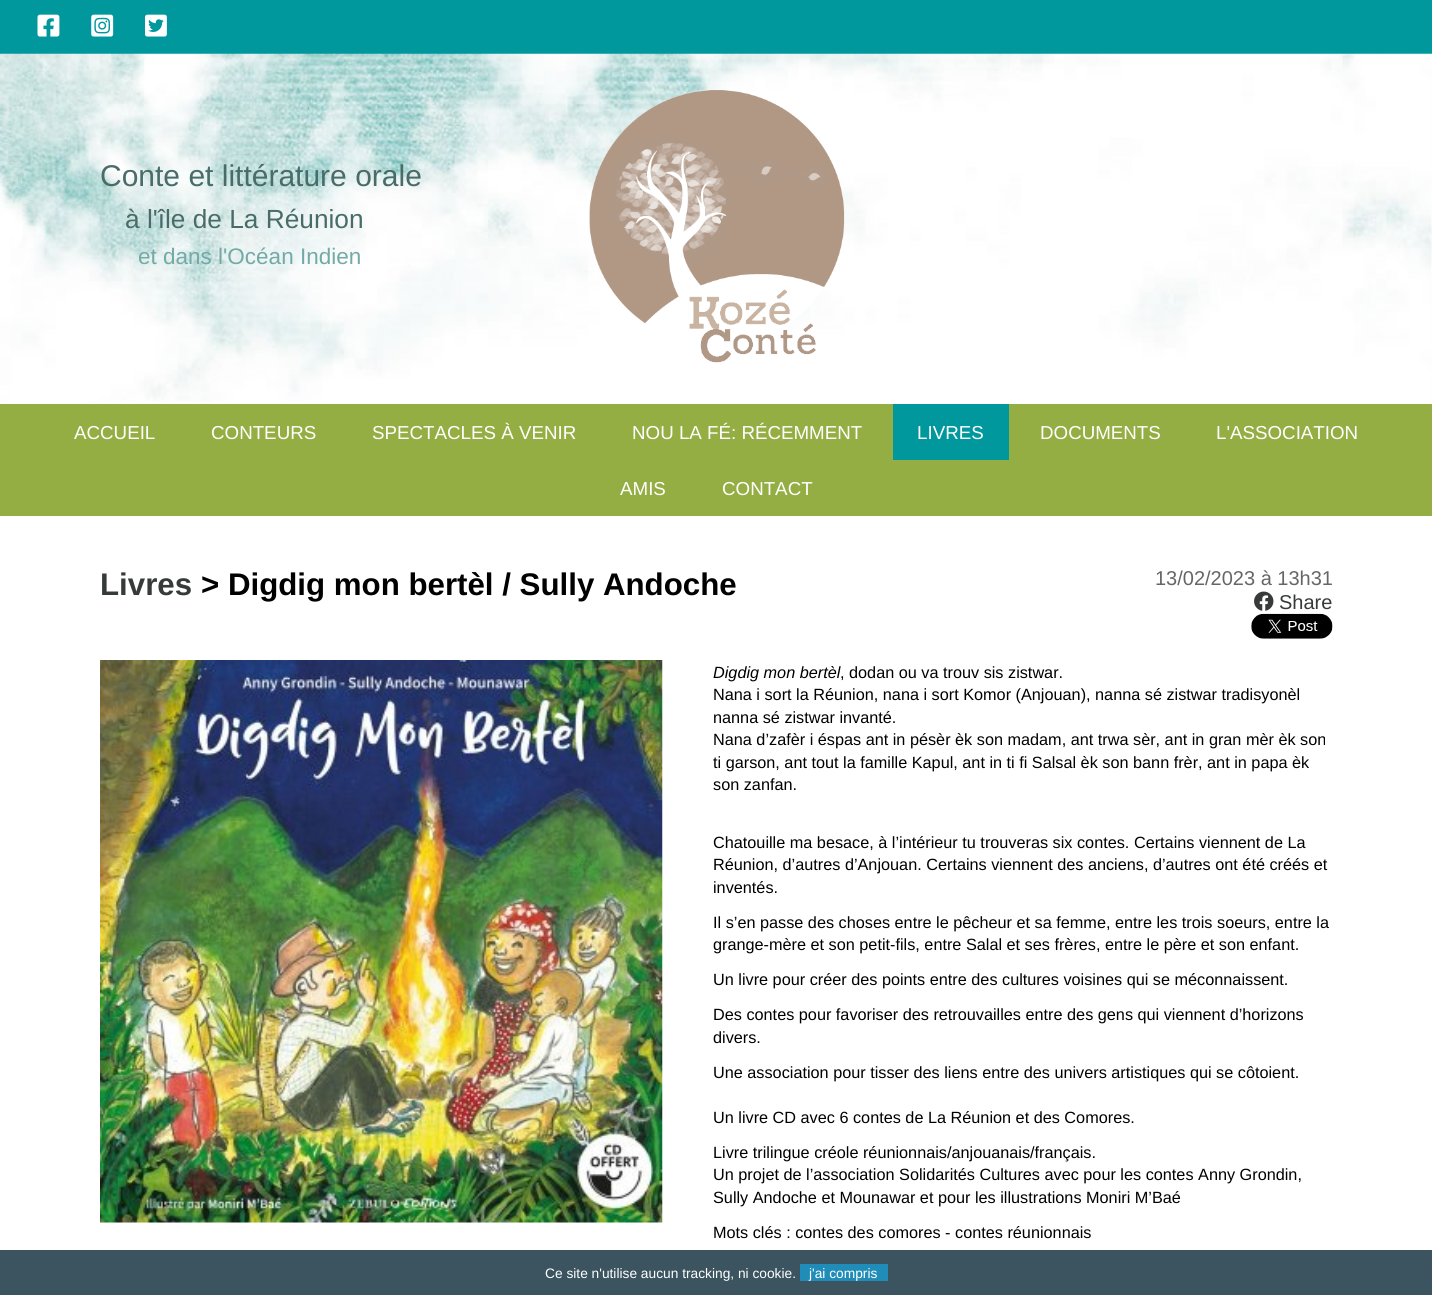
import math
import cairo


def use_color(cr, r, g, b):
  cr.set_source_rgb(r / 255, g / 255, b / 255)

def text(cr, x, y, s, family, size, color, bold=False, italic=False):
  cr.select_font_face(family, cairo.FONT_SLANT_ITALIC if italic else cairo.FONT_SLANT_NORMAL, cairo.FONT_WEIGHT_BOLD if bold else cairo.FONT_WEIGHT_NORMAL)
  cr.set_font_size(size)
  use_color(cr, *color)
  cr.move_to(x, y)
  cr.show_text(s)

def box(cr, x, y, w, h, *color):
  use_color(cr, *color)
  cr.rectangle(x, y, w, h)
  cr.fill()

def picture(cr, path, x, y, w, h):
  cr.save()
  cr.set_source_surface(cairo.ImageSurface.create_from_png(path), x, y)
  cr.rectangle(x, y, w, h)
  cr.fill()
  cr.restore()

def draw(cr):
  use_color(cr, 255, 255, 255)
  cr.paint()
  picture(cr, "img_01.png", 0, 401, 1432, 3)
  box(cr, 0, 0, 1432, 54, 0, 151, 157)
  picture(cr, "img_02.png", 37, 14, 23, 23)
  picture(cr, "img_03.png", 91, 14, 23, 23)
  picture(cr, "img_04.png", 145, 14, 22, 23)
  picture(cr, "img_05.png", 0, 53, 1432, 348)
  picture(cr, "img_06.png", 589, 90, 256, 273)
  box(cr, 0, 404, 1432, 112, 149, 174, 68)
  box(cr, 893, 404, 116, 56, 0, 151, 157)
  picture(cr, "img_07.png", 1254, 591, 20, 20)
  picture(cr, "img_08.png", 1251, 613, 82, 26)
  picture(cr, "img_09.png", 100, 660, 563, 563)
  cr.set_source_rgba(0.149, 0.259, 0.31, 0.9)
  cr.rectangle(0, 1250, 1432, 45)
  cr.fill()
  box(cr, 800, 1264, 88, 17, 32, 141, 184)
  text(cr, 100, 186, "Conte et littérature orale", "Liberation Sans", 30, (72, 108, 104))
  text(cr, 125, 228, "à l'île de La Réunion", "Liberation Sans", 26.25, (72, 108, 104))
  text(cr, 138, 264, "et dans l'Océan Indien", "Liberation Sans", 22.5, (114, 170, 166))
  text(cr, 74, 439, "ACCUEIL", "Liberation Sans", 18.75, (255, 255, 255))
  text(cr, 211, 439, "CONTEURS", "Liberation Sans", 18.75, (255, 255, 255))
  text(cr, 372, 439, "SPECTACLES À VENIR", "Liberation Sans", 18.75, (255, 255, 255))
  text(cr, 632, 439, "NOU LA FÉ: RÉCEMMENT", "Liberation Sans", 18.75, (255, 255, 255))
  text(cr, 917, 439, "LIVRES", "Liberation Sans", 18.75, (255, 255, 255))
  text(cr, 1040, 439, "DOCUMENTS", "Liberation Sans", 18.75, (255, 255, 255))
  text(cr, 1216, 439, "L'ASSOCIATION", "Liberation Sans", 18.75, (255, 255, 255))
  text(cr, 620, 495, "AMIS", "Liberation Sans", 18.75, (255, 255, 255))
  text(cr, 722, 495, "CONTACT", "Liberation Sans", 18.75, (255, 255, 255))
  text(cr, 100, 595, "Livres", "Liberation Sans", 31.25, (54, 59, 58), bold=True)
  text(cr, 201, 595, "> Digdig mon bertèl / Sully Andoche", "Liberation Sans", 31.25, (0, 0, 0), bold=True)
  text(cr, 1155, 585, "13/02/2023 à 13h31", "Liberation Sans", 20, (102, 102, 102))
  text(cr, 1279, 609, "Share", "Liberation Sans", 20, (54, 59, 58))
  text(cr, 713, 678, "Digdig mon bertèl", "Liberation Sans", 16.25, (0, 0, 0), italic=True)
  text(cr, 840, 678, ", dodan ou va trouv sis zistwar.", "Liberation Sans", 16.25, (0, 0, 0))
  text(cr, 713, 700, "Nana i sort la Réunion, nana i sort Komor (Anjouan), nanna sé zistwar tradisyonèl", "Liberation Sans", 16.25, (0, 0, 0))
  text(cr, 713, 723, "nanna sé zistwar invanté.", "Liberation Sans", 16.25, (0, 0, 0))
  text(cr, 713, 745, "Nana d’zafèr i éspas ant in pésèr èk son madam, ant trwa sèr, ant in gran mèr èk son", "Liberation Sans", 16.25, (0, 0, 0))
  text(cr, 713, 768, "ti garson, ant tout la famille Kapul, ant in ti fi Salsal èk son bann frèr, ant in papa èk", "Liberation Sans", 16.25, (0, 0, 0))
  text(cr, 713, 790, "son zanfan.", "Liberation Sans", 16.25, (0, 0, 0))
  text(cr, 713, 848, "Chatouille ma besace, à l’intérieur tu trouveras six contes. Certains viennent de La", "Liberation Sans", 16.25, (0, 0, 0))
  text(cr, 713, 870, "Réunion, d’autres d’Anjouan. Certains viennent des anciens, d’autres ont été créés et", "Liberation Sans", 16.25, (0, 0, 0))
  text(cr, 713, 893, "inventés.", "Liberation Sans", 16.25, (0, 0, 0))
  text(cr, 713, 928, "Il s’en passe des choses entre le pêcheur et sa femme, entre les trois soeurs, entre la", "Liberation Sans", 16.25, (0, 0, 0))
  text(cr, 713, 950, "grange-mère et son petit-fils, entre Salal et ses frères, entre le père et son enfant.", "Liberation Sans", 16.25, (0, 0, 0))
  text(cr, 713, 985, "Un livre pour créer des points entre des cultures voisines qui se méconnaissent.", "Liberation Sans", 16.25, (0, 0, 0))
  text(cr, 713, 1020, "Des contes pour favoriser des retrouvailles entre des gens qui viennent d’horizons", "Liberation Sans", 16.25, (0, 0, 0))
  text(cr, 713, 1043, "divers.", "Liberation Sans", 16.25, (0, 0, 0))
  text(cr, 713, 1078, "Une association pour tisser des liens entre des univers artistiques qui se côtoient.", "Liberation Sans", 16.25, (0, 0, 0))
  text(cr, 713, 1123, "Un livre CD avec 6 contes de La Réunion et des Comores.", "Liberation Sans", 16.25, (0, 0, 0))
  text(cr, 713, 1158, "Livre trilingue créole réunionnais/anjouanais/français.", "Liberation Sans", 16.25, (0, 0, 0))
  text(cr, 713, 1180, "Un projet de l’association Solidarités Cultures avec pour les contes Anny Grondin,", "Liberation Sans", 16.25, (0, 0, 0))
  text(cr, 713, 1203, "Sully Andoche et Mounawar et pour les illustrations Moniri M’Baé", "Liberation Sans", 16.25, (0, 0, 0))
  text(cr, 713, 1238, "Mots clés : contes des comores - contes réunionnais", "Liberation Sans", 16.25, (0, 0, 0))
  text(cr, 545, 1278, "Ce site n'utilise aucun tracking, ni cookie.", "Liberation Sans", 13.75, (255, 255, 255))
  text(cr, 809, 1278, "j'ai compris", "Liberation Sans", 13.75, (255, 255, 255))


surface = cairo.ImageSurface(cairo.FORMAT_RGB24, 1432, 1295)
cr = cairo.Context(surface)
options = cairo.FontOptions()
options.set_hint_metrics(cairo.HINT_METRICS_OFF)
options.set_hint_style(cairo.HINT_STYLE_NONE)
cr.set_font_options(options)
cr.set_miter_limit(4)
draw(cr)
surface.write_to_png("out.png")
